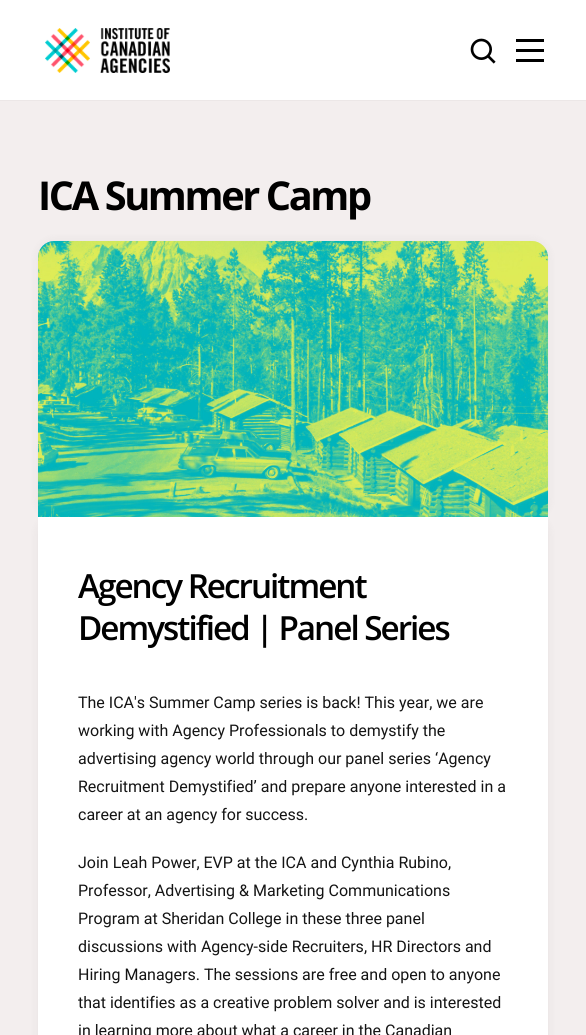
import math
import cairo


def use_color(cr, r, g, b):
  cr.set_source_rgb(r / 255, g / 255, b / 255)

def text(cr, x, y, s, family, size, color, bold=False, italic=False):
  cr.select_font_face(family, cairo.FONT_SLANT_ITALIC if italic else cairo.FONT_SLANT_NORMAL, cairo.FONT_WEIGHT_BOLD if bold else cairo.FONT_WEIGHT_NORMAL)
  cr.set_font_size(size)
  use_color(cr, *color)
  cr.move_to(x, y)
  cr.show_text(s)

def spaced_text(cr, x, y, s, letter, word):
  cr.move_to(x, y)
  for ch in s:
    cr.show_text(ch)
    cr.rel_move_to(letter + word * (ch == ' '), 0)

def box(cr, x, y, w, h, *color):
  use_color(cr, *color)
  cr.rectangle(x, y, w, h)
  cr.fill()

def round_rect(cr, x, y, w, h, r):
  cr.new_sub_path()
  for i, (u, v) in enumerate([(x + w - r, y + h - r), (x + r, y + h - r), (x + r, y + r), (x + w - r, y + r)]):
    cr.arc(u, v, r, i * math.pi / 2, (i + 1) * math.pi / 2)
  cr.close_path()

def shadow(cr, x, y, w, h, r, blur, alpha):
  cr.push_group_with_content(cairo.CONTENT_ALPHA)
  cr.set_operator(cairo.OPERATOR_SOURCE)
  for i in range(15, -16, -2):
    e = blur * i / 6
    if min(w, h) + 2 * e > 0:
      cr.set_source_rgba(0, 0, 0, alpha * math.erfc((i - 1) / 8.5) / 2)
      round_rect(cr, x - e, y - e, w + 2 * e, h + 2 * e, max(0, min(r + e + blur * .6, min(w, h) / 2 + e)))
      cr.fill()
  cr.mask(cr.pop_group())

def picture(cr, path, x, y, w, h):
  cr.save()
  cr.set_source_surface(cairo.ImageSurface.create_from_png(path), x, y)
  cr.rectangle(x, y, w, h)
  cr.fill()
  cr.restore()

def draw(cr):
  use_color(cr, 243, 238, 238)
  cr.paint()
  cr.set_source_rgba(0.067, 0.067, 0.102, 0.03)
  cr.rectangle(0, 100, 586, 1)
  cr.fill()
  box(cr, 0, 0, 586, 100, 255, 255, 255)
  picture(cr, "img_01.png", 45, 28, 125, 45)
  picture(cr, "img_02.png", 470, 38, 26, 26)
  box(cr, 516, 49, 28, 3, 0, 0, 0)
  box(cr, 516, 39, 28, 3, 0, 0, 0)
  box(cr, 516, 59, 28, 3, 0, 0, 0)
  use_color(cr, 0, 0, 0)
  shadow(cr, 38, 241, 510, 276, 16, 5, 0.05)
  shadow(cr, 38, 517, 510, 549, 16, 5, 0.05)
  picture(cr, "img_03.png", 38, 241, 510, 276)
  box(cr, 38, 517, 510, 518, 255, 255, 255)
  cr.select_font_face("Open Sans", cairo.FONT_SLANT_NORMAL, cairo.FONT_WEIGHT_BOLD)
  cr.set_font_size(39.75)
  use_color(cr, 0, 0, 0)
  spaced_text(cr, 38, 210, "ICA Summer Camp", -2.4, 0)
  cr.select_font_face("Open Sans SemiBold")
  cr.set_font_size(33.25)
  spaced_text(cr, 78, 598, "Agency Recruitment", -2, 0)
  spaced_text(cr, 78, 640, "Demystified | Panel Series", -2, 0)
  text(cr, 78, 708, "The ICA's Summer Camp series is back! This year, we are", "Roboto", 16, (20, 20, 20))
  text(cr, 78, 736, "working with Agency Professionals to demystify the", "Roboto", 16, (20, 20, 20))
  text(cr, 78, 764, "advertising agency world through our panel series ‘Agency", "Roboto", 16, (20, 20, 20))
  text(cr, 78, 792, "Recruitment Demystified’ and prepare anyone interested in a", "Roboto", 16, (20, 20, 20))
  text(cr, 78, 820, "career at an agency for success.", "Roboto", 16, (20, 20, 20))
  text(cr, 78, 868, "Join Leah Power, EVP at the ICA and Cynthia Rubino,", "Roboto", 16, (20, 20, 20))
  text(cr, 78, 896, "Professor, Advertising & Marketing Communications", "Roboto", 16, (20, 20, 20))
  text(cr, 78, 924, "Program at Sheridan College in these three panel", "Roboto", 16, (20, 20, 20))
  text(cr, 78, 952, "discussions with Agency-side Recruiters, HR Directors and", "Roboto", 16, (20, 20, 20))
  text(cr, 78, 980, "Hiring Managers. The sessions are free and open to anyone", "Roboto", 16, (20, 20, 20))
  text(cr, 78, 1008, "that identifies as a creative problem solver and is interested", "Roboto", 16, (20, 20, 20))
  text(cr, 78, 1036, "in learning more about what a career in the Canadian", "Roboto", 16, (20, 20, 20))


surface = cairo.ImageSurface(cairo.FORMAT_RGB24, 586, 1035)
cr = cairo.Context(surface)
options = cairo.FontOptions()
options.set_hint_metrics(cairo.HINT_METRICS_OFF)
options.set_hint_style(cairo.HINT_STYLE_NONE)
cr.set_font_options(options)
cr.set_miter_limit(4)
draw(cr)
surface.write_to_png("out.png")
